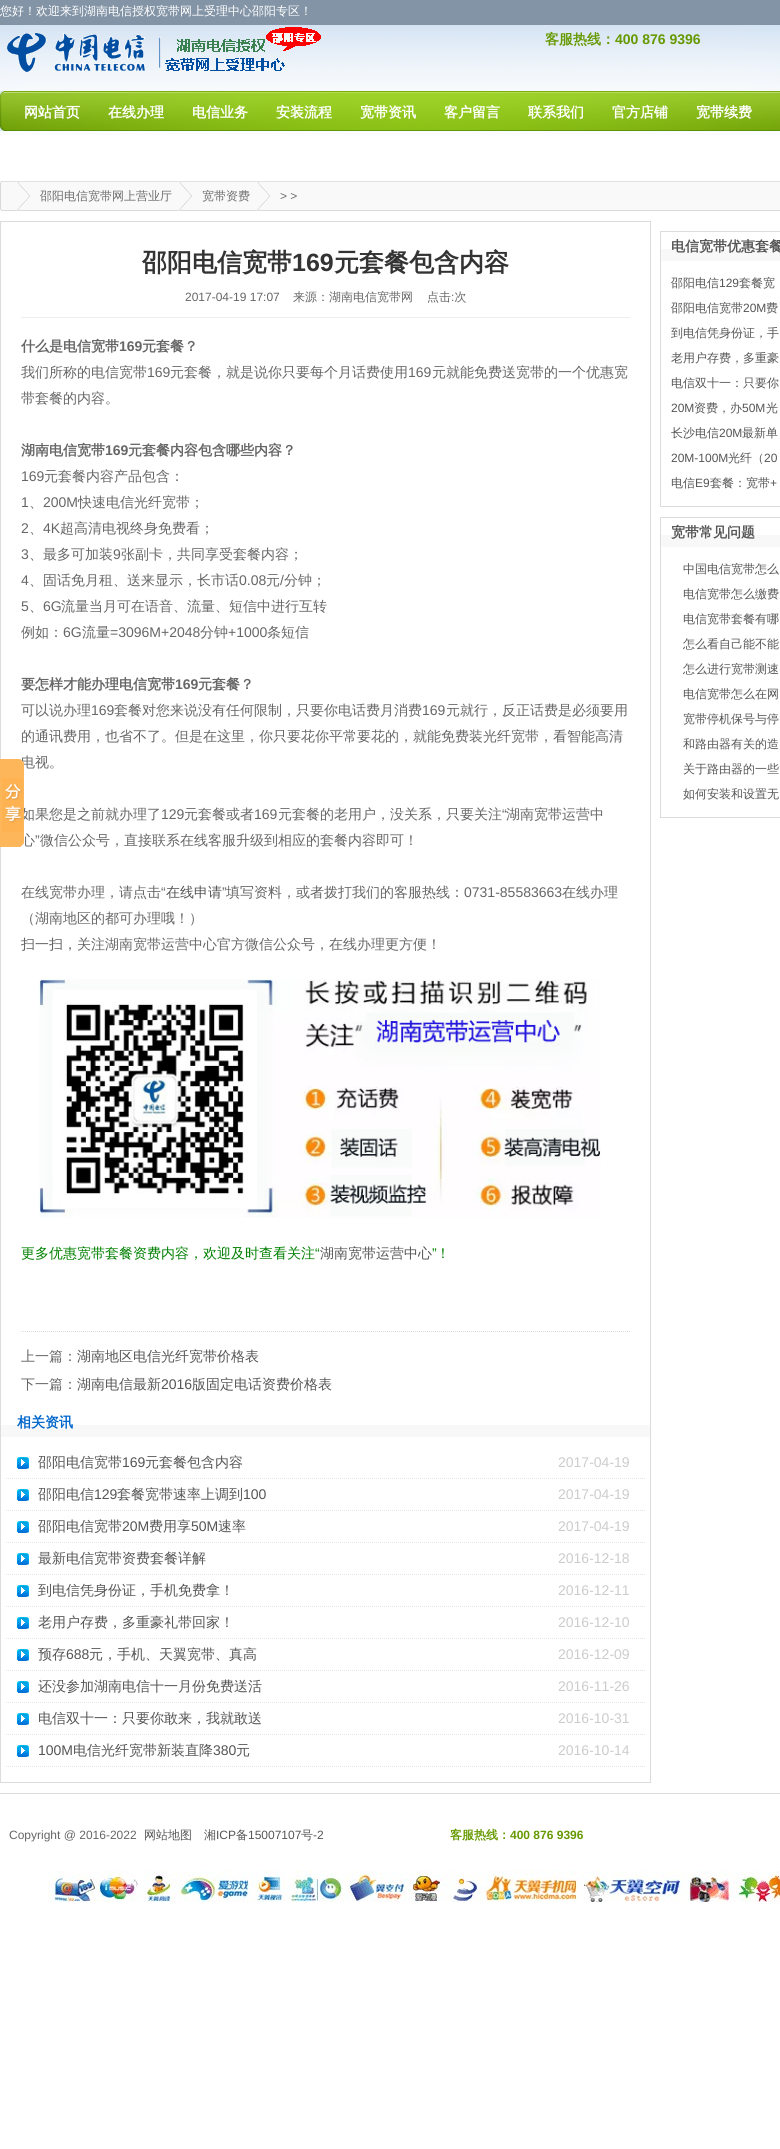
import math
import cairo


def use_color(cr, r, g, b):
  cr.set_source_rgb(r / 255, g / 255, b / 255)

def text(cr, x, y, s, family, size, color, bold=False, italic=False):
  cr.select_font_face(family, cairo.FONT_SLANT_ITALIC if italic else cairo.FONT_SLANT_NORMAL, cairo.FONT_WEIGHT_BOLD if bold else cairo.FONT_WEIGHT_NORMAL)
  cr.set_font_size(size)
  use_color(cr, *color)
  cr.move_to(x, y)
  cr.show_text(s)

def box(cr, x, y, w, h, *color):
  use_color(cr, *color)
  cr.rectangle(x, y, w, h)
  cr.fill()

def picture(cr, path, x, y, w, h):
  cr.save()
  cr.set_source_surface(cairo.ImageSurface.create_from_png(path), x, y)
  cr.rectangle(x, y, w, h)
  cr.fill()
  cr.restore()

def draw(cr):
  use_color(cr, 255, 255, 255)
  cr.paint()
  picture(cr, "img_01.png", 0, 0, 780, 135)
  picture(cr, "img_02.png", 7, 27, 314, 45)
  picture(cr, "img_03.png", 0, 91, 780, 40)
  picture(cr, "img_04.png", 0, 181, 780, 30)
  picture(cr, "img_05.png", 17, 181, 13, 30)
  picture(cr, "img_05.png", 179, 181, 13, 30)
  picture(cr, "img_05.png", 257, 181, 13, 30)
  cr.rectangle(0.5, 221.5, 650, 1561)
  use_color(cr, 220, 220, 220)
  cr.set_line_width(1)
  cr.stroke()
  box(cr, 21, 317, 609, 1, 238, 238, 238)
  picture(cr, "img_07.png", 39, 979, 562, 239)
  cr.new_path()
  cr.move_to(21, 1331.5)
  cr.line_to(630, 1331.5)
  use_color(cr, 220, 220, 220)
  cr.set_dash([1, 1])
  cr.stroke()
  box(cr, 1, 1425, 649, 12, 248, 248, 248)
  picture(cr, "img_08.png", 16, 1457, 13, 12)
  cr.new_path()
  cr.move_to(6, 1478.5)
  cr.line_to(645, 1478.5)
  use_color(cr, 229, 229, 229)
  cr.stroke()
  picture(cr, "img_08.png", 16, 1489, 13, 12)
  cr.new_path()
  cr.move_to(6, 1510.5)
  cr.line_to(645, 1510.5)
  cr.stroke()
  picture(cr, "img_08.png", 16, 1521, 13, 12)
  cr.new_path()
  cr.move_to(6, 1542.5)
  cr.line_to(645, 1542.5)
  cr.stroke()
  picture(cr, "img_08.png", 16, 1553, 13, 12)
  cr.new_path()
  cr.move_to(6, 1574.5)
  cr.line_to(645, 1574.5)
  cr.stroke()
  picture(cr, "img_08.png", 16, 1585, 13, 12)
  cr.new_path()
  cr.move_to(6, 1606.5)
  cr.line_to(645, 1606.5)
  cr.stroke()
  picture(cr, "img_08.png", 16, 1617, 13, 12)
  cr.new_path()
  cr.move_to(6, 1638.5)
  cr.line_to(645, 1638.5)
  cr.stroke()
  picture(cr, "img_08.png", 16, 1649, 13, 12)
  cr.new_path()
  cr.move_to(6, 1670.5)
  cr.line_to(645, 1670.5)
  cr.stroke()
  picture(cr, "img_08.png", 16, 1681, 13, 12)
  cr.new_path()
  cr.move_to(6, 1702.5)
  cr.line_to(645, 1702.5)
  cr.stroke()
  picture(cr, "img_08.png", 16, 1713, 13, 12)
  cr.new_path()
  cr.move_to(6, 1734.5)
  cr.line_to(645, 1734.5)
  cr.stroke()
  picture(cr, "img_08.png", 16, 1745, 13, 12)
  cr.new_path()
  cr.move_to(6, 1766.5)
  cr.line_to(645, 1766.5)
  cr.stroke()
  cr.rectangle(660.5, 231.5, 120, 275)
  use_color(cr, 220, 220, 220)
  cr.set_dash([])
  cr.stroke()
  box(cr, 661, 249, 119, 12, 248, 248, 248)
  cr.rectangle(660.5, 517.5, 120, 300)
  use_color(cr, 220, 220, 220)
  cr.stroke()
  box(cr, 661, 535, 119, 12, 248, 248, 248)
  box(cr, 0, 1793, 780, 1, 221, 221, 221)
  picture(cr, "img_09.png", 48, 1871, 732, 31)
  text(cr, 0, 15, "您好！欢迎来到湖南电信授权宽带网上受理中心邵阳专区！", "WenQuanYi Zen Hei Medium", 12, (255, 255, 255))
  text(cr, 545, 44, "客服热线：", "WenQuanYi Zen Hei", 14, (102, 153, 0), bold=True)
  text(cr, 615, 44, "400 876 9396", "Liberation Sans", 14, (102, 153, 0), bold=True)
  text(cr, 24, 117, "网站首页", "WenQuanYi Zen Hei", 14, (255, 255, 255), bold=True)
  text(cr, 108, 117, "在线办理", "WenQuanYi Zen Hei", 14, (255, 255, 255), bold=True)
  text(cr, 192, 117, "电信业务", "WenQuanYi Zen Hei", 14, (255, 255, 255), bold=True)
  text(cr, 276, 117, "安装流程", "WenQuanYi Zen Hei", 14, (255, 255, 255), bold=True)
  text(cr, 360, 117, "宽带资讯", "WenQuanYi Zen Hei", 14, (255, 255, 255), bold=True)
  text(cr, 444, 117, "客户留言", "WenQuanYi Zen Hei", 14, (255, 255, 255), bold=True)
  text(cr, 528, 117, "联系我们", "WenQuanYi Zen Hei", 14, (255, 255, 255), bold=True)
  text(cr, 612, 117, "官方店铺", "WenQuanYi Zen Hei", 14, (255, 255, 255), bold=True)
  text(cr, 696, 117, "宽带续费", "WenQuanYi Zen Hei", 14, (255, 255, 255), bold=True)
  text(cr, 40, 200, "邵阳电信宽带网上营业厅", "WenQuanYi Zen Hei Medium", 12, (108, 108, 108))
  text(cr, 202, 200, "宽带资费", "WenQuanYi Zen Hei Medium", 12, (108, 108, 108))
  text(cr, 280, 200, "> >", "Liberation Sans", 12, (108, 108, 108))
  text(cr, 142, 271, "邵阳电信宽带", "WenQuanYi Zen Hei", 25, (51, 51, 51), bold=True)
  text(cr, 292, 271, "169", "Liberation Sans", 25, (51, 51, 51), bold=True)
  text(cr, 334, 271, "元套餐包含内容", "WenQuanYi Zen Hei", 25, (51, 51, 51), bold=True)
  text(cr, 185, 301, "2017-04-19 17:07", "Liberation Sans", 12, (102, 102, 102))
  text(cr, 293, 301, "来源：湖南电信宽带网", "WenQuanYi Zen Hei Medium", 12, (102, 102, 102))
  text(cr, 427, 301, "点击 次", "WenQuanYi Zen Hei Medium", 12, (102, 102, 102))
  text(cr, 451, 301, ":", "Liberation Sans", 12, (102, 102, 102))
  text(cr, 21, 351, "什么是电信宽带", "WenQuanYi Zen Hei", 14, (102, 102, 102), bold=True)
  text(cr, 119, 351, "169", "Liberation Sans", 14, (102, 102, 102), bold=True)
  text(cr, 142, 351, "元套餐？", "WenQuanYi Zen Hei", 14, (102, 102, 102), bold=True)
  text(cr, 21, 377, "我们所称的电信宽带", "WenQuanYi Zen Hei Medium", 14, (102, 102, 102))
  text(cr, 147, 377, "169", "Liberation Sans", 14, (102, 102, 102))
  text(cr, 170, 377, "元套餐，就是说你只要每个月话费使用", "WenQuanYi Zen Hei Medium", 14, (102, 102, 102))
  text(cr, 408, 377, "169", "Liberation Sans", 14, (102, 102, 102))
  text(cr, 432, 377, "元就能免费送宽带的一个优惠宽", "WenQuanYi Zen Hei Medium", 14, (102, 102, 102))
  text(cr, 21, 403, "带套餐的内容。", "WenQuanYi Zen Hei Medium", 14, (102, 102, 102))
  text(cr, 21, 455, "湖南电信宽带", "WenQuanYi Zen Hei", 14, (102, 102, 102), bold=True)
  text(cr, 105, 455, "169", "Liberation Sans", 14, (102, 102, 102), bold=True)
  text(cr, 128, 455, "元套餐内容包含哪些内容？", "WenQuanYi Zen Hei", 14, (102, 102, 102), bold=True)
  text(cr, 21, 481, "169", "Liberation Sans", 14, (102, 102, 102))
  text(cr, 44, 481, "元套餐内容产品包含：", "WenQuanYi Zen Hei Medium", 14, (102, 102, 102))
  text(cr, 21, 507, "1", "Liberation Sans", 14, (102, 102, 102))
  text(cr, 29, 507, "、", "WenQuanYi Zen Hei Medium", 14, (102, 102, 102))
  text(cr, 43, 507, "200M", "Liberation Sans", 14, (102, 102, 102))
  text(cr, 78, 507, "快速电信光纤宽带；", "WenQuanYi Zen Hei Medium", 14, (102, 102, 102))
  text(cr, 21, 533, "2", "Liberation Sans", 14, (102, 102, 102))
  text(cr, 29, 533, "、", "WenQuanYi Zen Hei Medium", 14, (102, 102, 102))
  text(cr, 43, 533, "4K", "Liberation Sans", 14, (102, 102, 102))
  text(cr, 60, 533, "超高清电视终身免费看；", "WenQuanYi Zen Hei Medium", 14, (102, 102, 102))
  text(cr, 21, 559, "3", "Liberation Sans", 14, (102, 102, 102))
  text(cr, 29, 559, "、最多可加装", "WenQuanYi Zen Hei Medium", 14, (102, 102, 102))
  text(cr, 113, 559, "9", "Liberation Sans", 14, (102, 102, 102))
  text(cr, 121, 559, "张副卡，共同享受套餐内容；", "WenQuanYi Zen Hei Medium", 14, (102, 102, 102))
  text(cr, 21, 585, "4", "Liberation Sans", 14, (102, 102, 102))
  text(cr, 29, 585, "、固话免月租、送来显示，长市话", "WenQuanYi Zen Hei Medium", 14, (102, 102, 102))
  text(cr, 239, 585, "0.08", "Liberation Sans", 14, (102, 102, 102))
  text(cr, 266, 585, "元", "WenQuanYi Zen Hei Medium", 14, (102, 102, 102))
  text(cr, 280, 585, "/", "Liberation Sans", 14, (102, 102, 102))
  text(cr, 284, 585, "分钟；", "WenQuanYi Zen Hei Medium", 14, (102, 102, 102))
  text(cr, 21, 611, "5", "Liberation Sans", 14, (102, 102, 102))
  text(cr, 29, 611, "、", "WenQuanYi Zen Hei Medium", 14, (102, 102, 102))
  text(cr, 43, 611, "6G", "Liberation Sans", 14, (102, 102, 102))
  text(cr, 61, 611, "流量当月可在语音、流量、短信中进行互转", "WenQuanYi Zen Hei Medium", 14, (102, 102, 102))
  text(cr, 21, 637, "例如：", "WenQuanYi Zen Hei Medium", 14, (102, 102, 102))
  text(cr, 63, 637, "6G", "Liberation Sans", 14, (102, 102, 102))
  text(cr, 82, 637, "流量", "WenQuanYi Zen Hei Medium", 14, (102, 102, 102))
  text(cr, 110, 637, "=3096M+2048", "Liberation Sans", 14, (102, 102, 102))
  text(cr, 200, 637, "分钟", "WenQuanYi Zen Hei Medium", 14, (102, 102, 102))
  text(cr, 228, 637, "+1000", "Liberation Sans", 14, (102, 102, 102))
  text(cr, 267, 637, "条短信", "WenQuanYi Zen Hei Medium", 14, (102, 102, 102))
  text(cr, 21, 689, "要怎样才能办理电信宽带", "WenQuanYi Zen Hei", 14, (102, 102, 102), bold=True)
  text(cr, 175, 689, "169", "Liberation Sans", 14, (102, 102, 102), bold=True)
  text(cr, 198, 689, "元套餐？", "WenQuanYi Zen Hei", 14, (102, 102, 102), bold=True)
  text(cr, 21, 715, "可以说办理", "WenQuanYi Zen Hei Medium", 14, (102, 102, 102))
  text(cr, 91, 715, "169", "Liberation Sans", 14, (102, 102, 102))
  text(cr, 114, 715, "套餐对您来说没有任何限制，只要你电话费月消费", "WenQuanYi Zen Hei Medium", 14, (102, 102, 102))
  text(cr, 422, 715, "169", "Liberation Sans", 14, (102, 102, 102))
  text(cr, 446, 715, "元就行，反正话费是必须要用", "WenQuanYi Zen Hei Medium", 14, (102, 102, 102))
  text(cr, 21, 741, "的通讯费用，也省不了。但是在这里，你只要花你平常要花的，就能免费装光纤宽带，看智能高清", "WenQuanYi Zen Hei Medium", 14, (102, 102, 102))
  text(cr, 21, 767, "电视。", "WenQuanYi Zen Hei Medium", 14, (102, 102, 102))
  text(cr, 21, 819, "如果您是之前就办理了", "WenQuanYi Zen Hei Medium", 14, (102, 102, 102))
  text(cr, 161, 819, "129", "Liberation Sans", 14, (102, 102, 102))
  text(cr, 184, 819, "元套餐或者", "WenQuanYi Zen Hei Medium", 14, (102, 102, 102))
  text(cr, 254, 819, "169", "Liberation Sans", 14, (102, 102, 102))
  text(cr, 278, 819, "元套餐的老用户，没关系，只要关注", "WenQuanYi Zen Hei Medium", 14, (102, 102, 102))
  text(cr, 502, 819, "“", "Liberation Sans", 14, (102, 102, 102))
  text(cr, 506, 819, "湖南宽带运营中", "WenQuanYi Zen Hei Medium", 14, (102, 102, 102))
  text(cr, 21, 845, "心", "WenQuanYi Zen Hei Medium", 14, (102, 102, 102))
  picture(cr, "img_06.png", 0, 759, 24, 88)
  text(cr, 35, 845, "”", "Liberation Sans", 14, (102, 102, 102))
  text(cr, 40, 845, "微信公众号，直接联系在线客服升级到相应的套餐内容即可！", "WenQuanYi Zen Hei Medium", 14, (102, 102, 102))
  text(cr, 21, 897, "在线宽带办理，请点击", "WenQuanYi Zen Hei Medium", 14, (102, 102, 102))
  text(cr, 161, 897, "“", "Liberation Sans", 14, (102, 102, 102))
  text(cr, 166, 897, "在线申请", "WenQuanYi Zen Hei Medium", 14, (85, 85, 85))
  text(cr, 222, 897, "”", "Liberation Sans", 14, (102, 102, 102))
  text(cr, 226, 897, "填写资料，或者拨打我们的客服热线：", "WenQuanYi Zen Hei Medium", 14, (102, 102, 102))
  text(cr, 464, 897, "0731-85583663", "Liberation Sans", 14, (102, 102, 102))
  text(cr, 562, 897, "在线办理", "WenQuanYi Zen Hei Medium", 14, (102, 102, 102))
  text(cr, 21, 923, "（湖南地区的都可办理哦！）", "WenQuanYi Zen Hei Medium", 14, (102, 102, 102))
  text(cr, 21, 949, "扫一扫，关注湖南宽带运营中心官方微信公众号，在线办理更方便！", "WenQuanYi Zen Hei Medium", 14, (102, 102, 102))
  text(cr, 21, 1258, "更多优惠宽带套餐资费内容，欢迎及时查看关注", "WenQuanYi Zen Hei Medium", 14, (0, 128, 0))
  text(cr, 315, 1258, "“", "Liberation Sans", 14, (0, 128, 0))
  text(cr, 320, 1258, "湖南宽带运营中心", "WenQuanYi Zen Hei Medium", 14, (85, 85, 85))
  text(cr, 432, 1258, "”", "Liberation Sans", 14, (0, 128, 0))
  text(cr, 436, 1258, "！", "WenQuanYi Zen Hei Medium", 14, (0, 128, 0))
  text(cr, 21, 1361, "上一篇：", "WenQuanYi Zen Hei Medium", 14, (102, 102, 102))
  text(cr, 77, 1361, "湖南地区电信光纤宽带价格表", "WenQuanYi Zen Hei Medium", 14, (85, 85, 85))
  text(cr, 21, 1389, "下一篇：", "WenQuanYi Zen Hei Medium", 14, (102, 102, 102))
  text(cr, 77, 1389, "湖南电信最新", "WenQuanYi Zen Hei Medium", 14, (85, 85, 85))
  text(cr, 161, 1389, "2016", "Liberation Sans", 14, (85, 85, 85))
  text(cr, 192, 1389, "版固定电话资费价格表", "WenQuanYi Zen Hei Medium", 14, (85, 85, 85))
  text(cr, 17, 1427, "相关资讯", "WenQuanYi Zen Hei", 14, (0, 102, 204), bold=True)
  text(cr, 38, 1467, "邵阳电信宽带", "WenQuanYi Zen Hei Medium", 14, (85, 85, 85))
  text(cr, 122, 1467, "169", "Liberation Sans", 14, (85, 85, 85))
  text(cr, 145, 1467, "元套餐包含内容", "WenQuanYi Zen Hei Medium", 14, (85, 85, 85))
  text(cr, 558, 1467, "2017-04-19", "Liberation Sans", 14, (204, 204, 204))
  text(cr, 38, 1499, "邵阳电信", "WenQuanYi Zen Hei Medium", 14, (85, 85, 85))
  text(cr, 94, 1499, "129", "Liberation Sans", 14, (85, 85, 85))
  text(cr, 117, 1499, "套餐宽带速率上调到", "WenQuanYi Zen Hei Medium", 14, (85, 85, 85))
  text(cr, 243, 1499, "100", "Liberation Sans", 14, (85, 85, 85))
  text(cr, 558, 1499, "2017-04-19", "Liberation Sans", 14, (204, 204, 204))
  text(cr, 38, 1531, "邵阳电信宽带", "WenQuanYi Zen Hei Medium", 14, (85, 85, 85))
  text(cr, 122, 1531, "20M", "Liberation Sans", 14, (85, 85, 85))
  text(cr, 149, 1531, "费用享", "WenQuanYi Zen Hei Medium", 14, (85, 85, 85))
  text(cr, 191, 1531, "50M", "Liberation Sans", 14, (85, 85, 85))
  text(cr, 218, 1531, "速率", "WenQuanYi Zen Hei Medium", 14, (85, 85, 85))
  text(cr, 558, 1531, "2017-04-19", "Liberation Sans", 14, (204, 204, 204))
  text(cr, 38, 1563, "最新电信宽带资费套餐详解", "WenQuanYi Zen Hei Medium", 14, (85, 85, 85))
  text(cr, 558, 1563, "2016-12-18", "Liberation Sans", 14, (204, 204, 204))
  text(cr, 38, 1595, "到电信凭身份证，手机免费拿！", "WenQuanYi Zen Hei Medium", 14, (85, 85, 85))
  text(cr, 558, 1595, "2016-12-11", "Liberation Sans", 14, (204, 204, 204))
  text(cr, 38, 1627, "老用户存费，多重豪礼带回家！", "WenQuanYi Zen Hei Medium", 14, (85, 85, 85))
  text(cr, 558, 1627, "2016-12-10", "Liberation Sans", 14, (204, 204, 204))
  text(cr, 38, 1659, "预存", "WenQuanYi Zen Hei Medium", 14, (85, 85, 85))
  text(cr, 66, 1659, "688", "Liberation Sans", 14, (85, 85, 85))
  text(cr, 89, 1659, "元，手机、天翼宽带、真高", "WenQuanYi Zen Hei Medium", 14, (85, 85, 85))
  text(cr, 558, 1659, "2016-12-09", "Liberation Sans", 14, (204, 204, 204))
  text(cr, 38, 1691, "还没参加湖南电信十一月份免费送活", "WenQuanYi Zen Hei Medium", 14, (85, 85, 85))
  text(cr, 558, 1691, "2016-11-26", "Liberation Sans", 14, (204, 204, 204))
  text(cr, 38, 1723, "电信双十一：只要你敢来，我就敢送", "WenQuanYi Zen Hei Medium", 14, (85, 85, 85))
  text(cr, 558, 1723, "2016-10-31", "Liberation Sans", 14, (204, 204, 204))
  text(cr, 38, 1755, "100M", "Liberation Sans", 14, (85, 85, 85))
  text(cr, 73, 1755, "电信光纤宽带新装直降", "WenQuanYi Zen Hei Medium", 14, (85, 85, 85))
  text(cr, 213, 1755, "380", "Liberation Sans", 14, (85, 85, 85))
  text(cr, 236, 1755, "元", "WenQuanYi Zen Hei Medium", 14, (85, 85, 85))
  text(cr, 558, 1755, "2016-10-14", "Liberation Sans", 14, (204, 204, 204))
  text(cr, 671, 251, "电信宽带优惠套餐", "WenQuanYi Zen Hei", 14, (85, 85, 85), bold=True)
  text(cr, 671, 287, "邵阳电信", "WenQuanYi Zen Hei Medium", 12, (85, 85, 85))
  text(cr, 719, 287, "129", "Liberation Sans", 12, (85, 85, 85))
  text(cr, 739, 287, "套餐宽", "WenQuanYi Zen Hei Medium", 12, (85, 85, 85))
  text(cr, 671, 312, "邵阳电信宽带", "WenQuanYi Zen Hei Medium", 12, (85, 85, 85))
  text(cr, 743, 312, "20M", "Liberation Sans", 12, (85, 85, 85))
  text(cr, 766, 312, "费", "WenQuanYi Zen Hei Medium", 12, (85, 85, 85))
  text(cr, 671, 337, "到电信凭身份证，手", "WenQuanYi Zen Hei Medium", 12, (85, 85, 85))
  text(cr, 671, 362, "老用户存费，多重豪", "WenQuanYi Zen Hei Medium", 12, (85, 85, 85))
  text(cr, 671, 387, "电信双十一：只要你", "WenQuanYi Zen Hei Medium", 12, (85, 85, 85))
  text(cr, 671, 412, "20M", "Liberation Sans", 12, (85, 85, 85))
  text(cr, 694, 412, "资费，办", "WenQuanYi Zen Hei Medium", 12, (85, 85, 85))
  text(cr, 742, 412, "50M", "Liberation Sans", 12, (85, 85, 85))
  text(cr, 766, 412, "光", "WenQuanYi Zen Hei Medium", 12, (85, 85, 85))
  text(cr, 671, 437, "长沙电信", "WenQuanYi Zen Hei Medium", 12, (85, 85, 85))
  text(cr, 719, 437, "20M", "Liberation Sans", 12, (85, 85, 85))
  text(cr, 742, 437, "最新单", "WenQuanYi Zen Hei Medium", 12, (85, 85, 85))
  text(cr, 671, 462, "20M-100M", "Liberation Sans", 12, (85, 85, 85))
  text(cr, 728, 462, "光纤（", "WenQuanYi Zen Hei Medium", 12, (85, 85, 85))
  text(cr, 764, 462, "20", "Liberation Sans", 12, (85, 85, 85))
  text(cr, 671, 487, "电信", "WenQuanYi Zen Hei Medium", 12, (85, 85, 85))
  text(cr, 695, 487, "E9", "Liberation Sans", 12, (85, 85, 85))
  text(cr, 710, 487, "套餐：宽带", "WenQuanYi Zen Hei Medium", 12, (85, 85, 85))
  text(cr, 770, 487, "+", "Liberation Sans", 12, (85, 85, 85))
  text(cr, 671, 537, "宽带常见问题", "WenQuanYi Zen Hei", 14, (85, 85, 85), bold=True)
  text(cr, 683, 573, "中国电信宽带怎么", "WenQuanYi Zen Hei Medium", 12, (85, 85, 85))
  text(cr, 683, 598, "电信宽带怎么缴费", "WenQuanYi Zen Hei Medium", 12, (85, 85, 85))
  text(cr, 683, 623, "电信宽带套餐有哪", "WenQuanYi Zen Hei Medium", 12, (85, 85, 85))
  text(cr, 683, 648, "怎么看自己能不能", "WenQuanYi Zen Hei Medium", 12, (85, 85, 85))
  text(cr, 683, 673, "怎么进行宽带测速", "WenQuanYi Zen Hei Medium", 12, (85, 85, 85))
  text(cr, 683, 698, "电信宽带怎么在网", "WenQuanYi Zen Hei Medium", 12, (85, 85, 85))
  text(cr, 683, 723, "宽带停机保号与停", "WenQuanYi Zen Hei Medium", 12, (85, 85, 85))
  text(cr, 683, 748, "和路由器有关的造", "WenQuanYi Zen Hei Medium", 12, (85, 85, 85))
  text(cr, 683, 773, "关于路由器的一些", "WenQuanYi Zen Hei Medium", 12, (85, 85, 85))
  text(cr, 683, 798, "如何安装和设置无", "WenQuanYi Zen Hei Medium", 12, (85, 85, 85))
  text(cr, 9, 1839, "Copyright @ 2016-2022", "Liberation Sans", 12, (102, 102, 102))
  text(cr, 144, 1839, "网站地图", "WenQuanYi Zen Hei Medium", 12, (85, 85, 85))
  text(cr, 204, 1839, "湘", "WenQuanYi Zen Hei Medium", 12, (85, 85, 85))
  text(cr, 216, 1839, "ICP", "Liberation Sans", 12, (85, 85, 85))
  text(cr, 236, 1839, "备", "WenQuanYi Zen Hei Medium", 12, (85, 85, 85))
  text(cr, 248, 1839, "15007107", "Liberation Sans", 12, (85, 85, 85))
  text(cr, 301, 1839, "号", "WenQuanYi Zen Hei Medium", 12, (85, 85, 85))
  text(cr, 313, 1839, "-2", "Liberation Sans", 12, (85, 85, 85))
  text(cr, 450, 1839, "客服热线：", "WenQuanYi Zen Hei", 12, (102, 153, 0), bold=True)
  text(cr, 510, 1839, "400 876 9396", "Liberation Sans", 12, (102, 153, 0), bold=True)


surface = cairo.ImageSurface(cairo.FORMAT_RGB24, 780, 2149)
cr = cairo.Context(surface)
options = cairo.FontOptions()
options.set_hint_metrics(cairo.HINT_METRICS_OFF)
options.set_hint_style(cairo.HINT_STYLE_NONE)
cr.set_font_options(options)
cr.set_miter_limit(4)
draw(cr)
surface.write_to_png("out.png")
